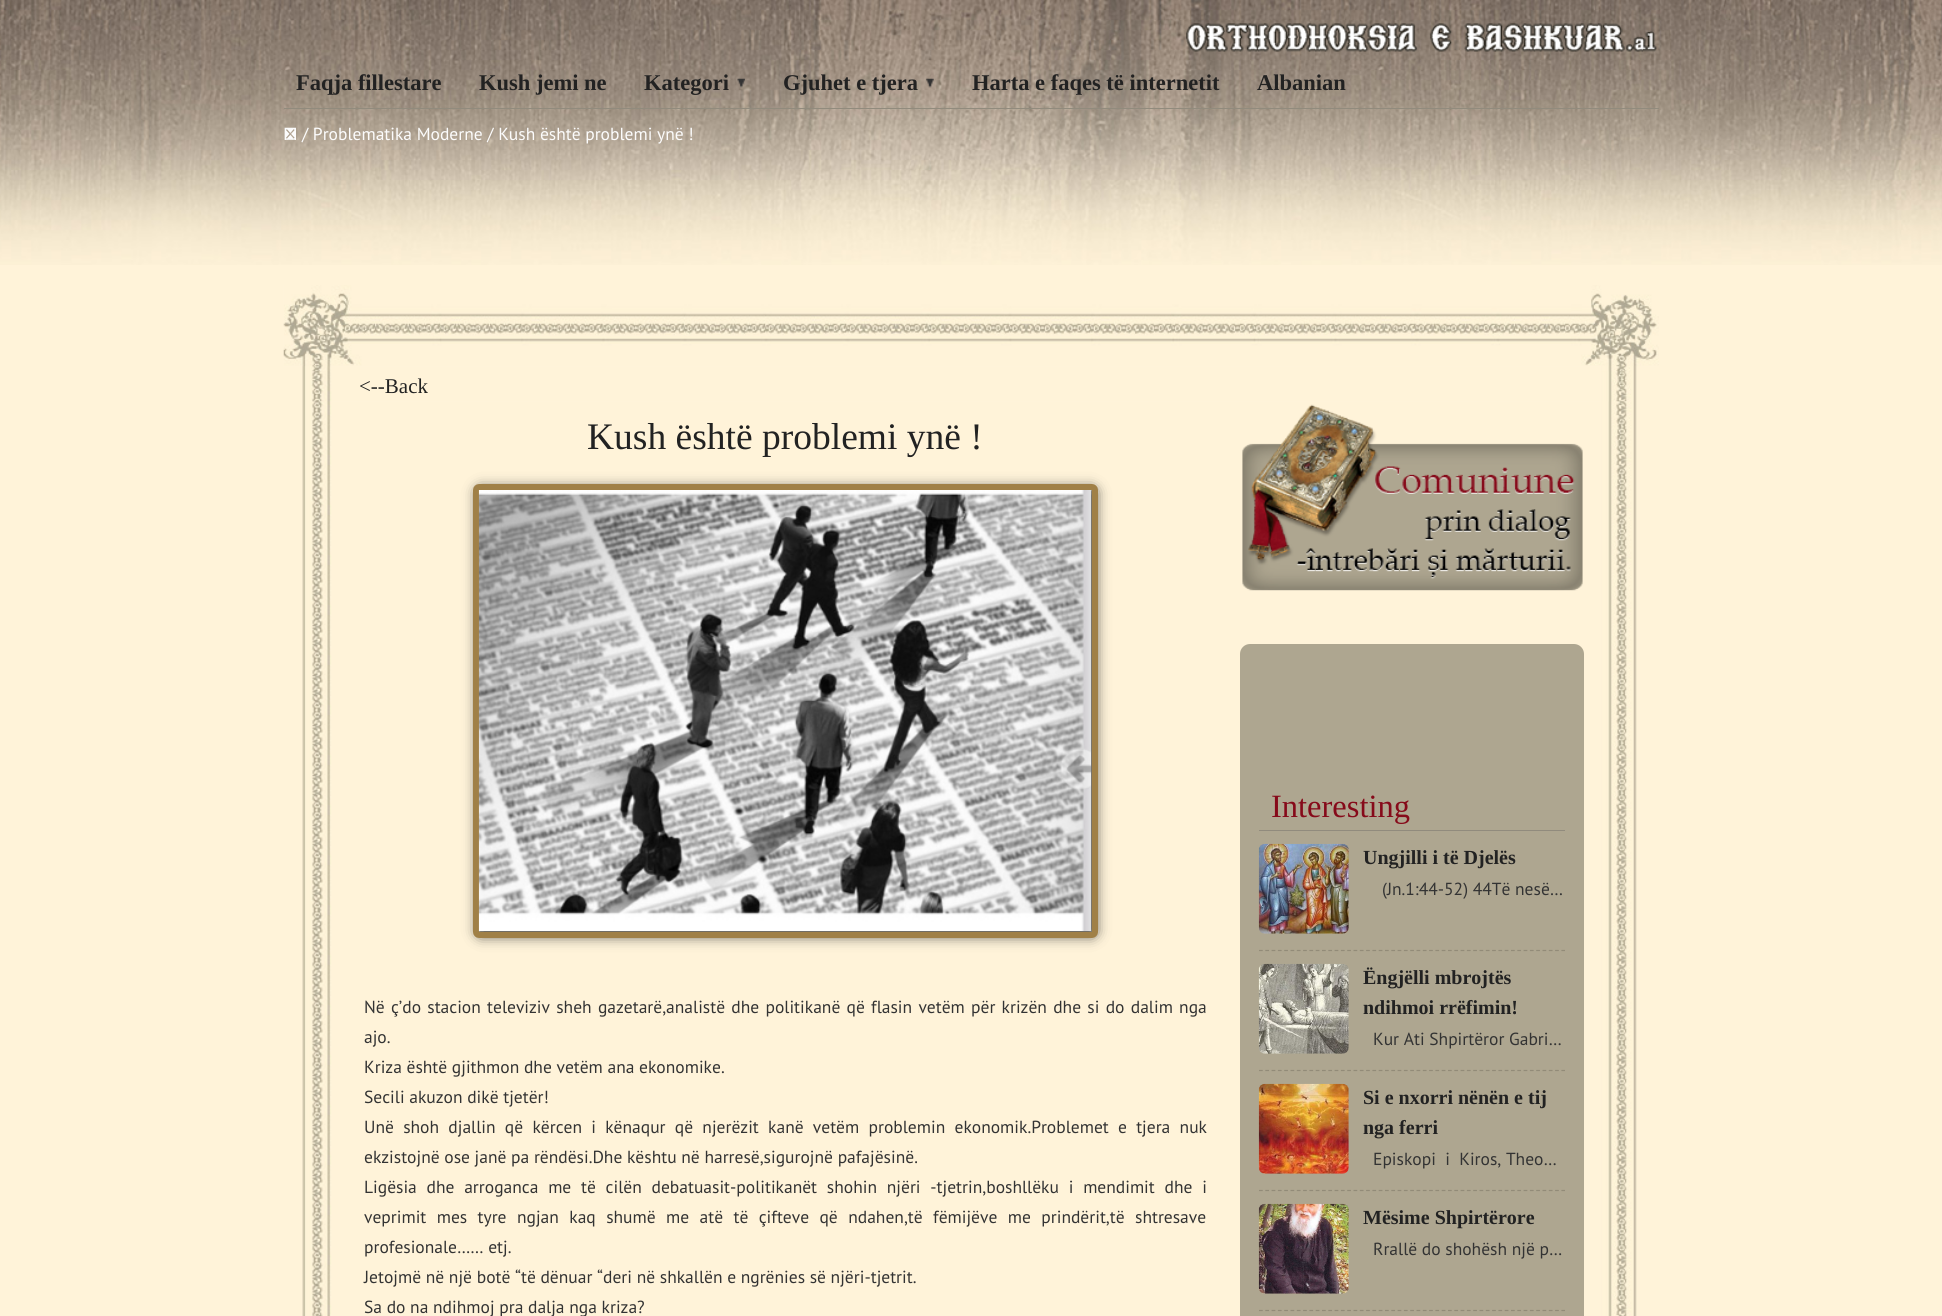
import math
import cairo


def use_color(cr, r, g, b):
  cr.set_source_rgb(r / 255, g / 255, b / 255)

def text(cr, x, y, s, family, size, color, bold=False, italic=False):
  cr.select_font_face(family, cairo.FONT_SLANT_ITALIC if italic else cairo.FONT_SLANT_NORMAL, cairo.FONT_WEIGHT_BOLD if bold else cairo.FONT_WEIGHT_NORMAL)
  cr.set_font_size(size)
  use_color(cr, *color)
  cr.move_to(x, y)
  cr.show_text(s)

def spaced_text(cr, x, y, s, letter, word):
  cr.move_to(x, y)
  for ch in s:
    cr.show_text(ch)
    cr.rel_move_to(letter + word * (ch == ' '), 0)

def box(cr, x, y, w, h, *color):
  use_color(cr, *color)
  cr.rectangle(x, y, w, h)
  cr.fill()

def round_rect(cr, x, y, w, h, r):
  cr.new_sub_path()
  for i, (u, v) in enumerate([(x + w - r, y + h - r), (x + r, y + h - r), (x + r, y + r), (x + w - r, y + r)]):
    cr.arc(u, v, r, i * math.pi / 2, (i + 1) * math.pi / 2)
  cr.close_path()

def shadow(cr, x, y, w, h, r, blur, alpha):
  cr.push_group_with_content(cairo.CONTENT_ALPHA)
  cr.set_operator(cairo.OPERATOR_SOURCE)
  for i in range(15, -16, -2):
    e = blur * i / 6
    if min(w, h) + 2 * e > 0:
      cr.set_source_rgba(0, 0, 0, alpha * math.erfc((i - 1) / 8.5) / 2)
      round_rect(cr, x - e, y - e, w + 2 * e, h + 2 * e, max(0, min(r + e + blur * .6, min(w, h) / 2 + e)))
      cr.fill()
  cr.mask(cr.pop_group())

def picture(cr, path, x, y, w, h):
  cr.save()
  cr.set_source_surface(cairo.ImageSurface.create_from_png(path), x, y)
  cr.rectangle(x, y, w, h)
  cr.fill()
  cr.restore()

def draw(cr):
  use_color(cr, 255, 243, 217)
  cr.paint()
  picture(cr, "img_01.png", 0, 0, 1942, 265)
  picture(cr, "img_02.png", 1186, 23, 471, 29)
  box(cr, 284, 108, 1375, 1, 145, 139, 125)
  picture(cr, "img_03.png", 737, 78, 8, 10)
  picture(cr, "img_04.png", 926, 78, 8, 10)
  picture(cr, "img_05.png", 284, 127, 12, 13)
  picture(cr, "img_06.png", 302, 366, 1335, 950)
  picture(cr, "img_07.png", 283, 285, 1376, 82)
  picture(cr, "img_08.png", 311, 371, 1320, 31)
  use_color(cr, 50, 50, 50)
  shadow(cr, 478, 489, 617, 446, 2.5, 7, 1)
  round_rect(cr, 476, 487, 619, 448, 3)
  use_color(cr, 160, 128, 71)
  cr.set_line_width(6)
  cr.stroke()
  picture(cr, "img_09.png", 478, 490, 614, 441)
  picture(cr, "img_10.png", 1242, 404, 341, 187)
  use_color(cr, 174, 166, 144)
  round_rect(cr, 1240, 644, 344, 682, 10)
  cr.fill()
  box(cr, 1259, 830, 306, 1, 145, 139, 125)
  cr.new_path()
  cr.move_to(1259, 950.5)
  cr.line_to(1565, 950.5)
  use_color(cr, 146, 139, 120)
  cr.set_line_width(1.2)
  cr.set_dash([3.75, 2.55])
  cr.stroke()
  picture(cr, "img_11.png", 1258, 843, 91, 91)
  cr.new_path()
  cr.move_to(1259, 1070.5)
  cr.line_to(1565, 1070.5)
  cr.stroke()
  picture(cr, "img_12.png", 1258, 963, 91, 91)
  cr.new_path()
  cr.move_to(1259, 1190.5)
  cr.line_to(1565, 1190.5)
  cr.stroke()
  picture(cr, "img_13.png", 1258, 1083, 91, 91)
  cr.new_path()
  cr.move_to(1259, 1310.5)
  cr.line_to(1565, 1310.5)
  cr.stroke()
  picture(cr, "img_14.png", 1258, 1203, 91, 91)
  text(cr, 296, 90, "Faqja fillestare", "Liberation Serif", 22.5, (34, 34, 34), bold=True)
  text(cr, 479, 90, "Kush jemi ne", "Liberation Serif", 22.5, (34, 34, 34), bold=True)
  text(cr, 644, 90, "Kategori", "Liberation Serif", 22.5, (34, 34, 34), bold=True)
  text(cr, 783, 90, "Gjuhet e tjera", "Liberation Serif", 22.5, (34, 34, 34), bold=True)
  text(cr, 972, 90, "Harta e faqes të internetit", "Liberation Serif", 22.5, (34, 34, 34), bold=True)
  text(cr, 1257, 90, "Albanian", "Liberation Serif", 22.5, (34, 34, 34), bold=True)
  text(cr, 302, 140, "/ Problematika Moderne / Kush është problemi ynë !", "PT Sans", 17.5, (252, 252, 252))
  text(cr, 359, 393, "<--Back", "Liberation Serif", 21, (34, 34, 34))
  text(cr, 587, 449, "Kush është problemi ynë !", "Liberation Serif", 37.5, (34, 34, 34))
  cr.select_font_face("PT Sans")
  cr.set_font_size(17.5)
  use_color(cr, 51, 51, 51)
  spaced_text(cr, 364, 1013, "Në ç’do stacion televiziv sheh gazetarë,analistë dhe politikanë që flasin vetëm për krizën dhe si do dalim nga", 0, 1.6)
  text(cr, 364, 1043, "ajo.", "PT Sans", 17.5, (51, 51, 51))
  text(cr, 364, 1073, "Kriza është gjithmon dhe vetëm ana ekonomike.", "PT Sans", 17.5, (51, 51, 51))
  text(cr, 364, 1103, "Secili akuzon dikë tjetër!", "PT Sans", 17.5, (51, 51, 51))
  spaced_text(cr, 364, 1133, "Unë shoh djallin që kërcen i kënaqur që njerëzit kanë vetëm problemin ekonomik.Problemet e tjera nuk", 0, 4.6)
  text(cr, 364, 1163, "ekzistojnë ose janë pa rëndësi.Dhe kështu në harresë,sigurojnë pafajësinë.", "PT Sans", 17.5, (51, 51, 51))
  spaced_text(cr, 364, 1193, "Ligësia dhe arroganca me të cilën debatuasit-politikanët shohin njëri -tjetrin,boshllëku i mendimit dhe i", 0, 5.1)
  spaced_text(cr, 364, 1223, "veprimit mes tyre ngjan kaq shumë me atë të çifteve që ndahen,të fëmijëve me prindërit,të shtresave", 0, 5.75)
  text(cr, 364, 1253, "profesionale…… etj.", "PT Sans", 17.5, (51, 51, 51))
  text(cr, 364, 1283, "Jetojmë në një botë “të dënuar “deri në shkallën e ngrënies së njëri-tjetrit.", "PT Sans", 17.5, (51, 51, 51))
  text(cr, 364, 1313, "Sa do na ndihmoj pra dalja nga kriza?", "PT Sans", 17.5, (51, 51, 51))
  text(cr, 1271, 817, "Interesting", "Liberation Serif", 32.5, (134, 10, 26))
  text(cr, 1363, 864, "Ungjilli i të Djelës", "Liberation Serif", 20, (34, 34, 34), bold=True)
  text(cr, 1382, 895, "(Jn.1:44-52) 44Të nesë…", "PT Sans", 17.5, (51, 51, 51))
  text(cr, 1363, 984, "Ëngjëlli mbrojtës", "Liberation Serif", 20, (34, 34, 34), bold=True)
  text(cr, 1363, 1014, "ndihmoi rrëfimin!", "Liberation Serif", 20, (34, 34, 34), bold=True)
  text(cr, 1373, 1045, "Kur Ati Shpirtëror Gabri…", "PT Sans", 17.5, (51, 51, 51))
  text(cr, 1363, 1104, "Si e nxorri nënën e tij", "Liberation Serif", 20, (34, 34, 34), bold=True)
  text(cr, 1363, 1134, "nga ferri", "Liberation Serif", 20, (34, 34, 34), bold=True)
  text(cr, 1373, 1165, "Episkopi  i  Kiros, Theo…", "PT Sans", 17.5, (51, 51, 51))
  text(cr, 1363, 1224, "Mësime Shpirtërore", "Liberation Serif", 20, (34, 34, 34), bold=True)
  text(cr, 1373, 1255, "Rrallë do shohësh një p…", "PT Sans", 17.5, (51, 51, 51))


surface = cairo.ImageSurface(cairo.FORMAT_RGB24, 1942, 1316)
cr = cairo.Context(surface)
options = cairo.FontOptions()
options.set_hint_metrics(cairo.HINT_METRICS_OFF)
options.set_hint_style(cairo.HINT_STYLE_NONE)
cr.set_font_options(options)
cr.set_miter_limit(4)
draw(cr)
surface.write_to_png("out.png")
